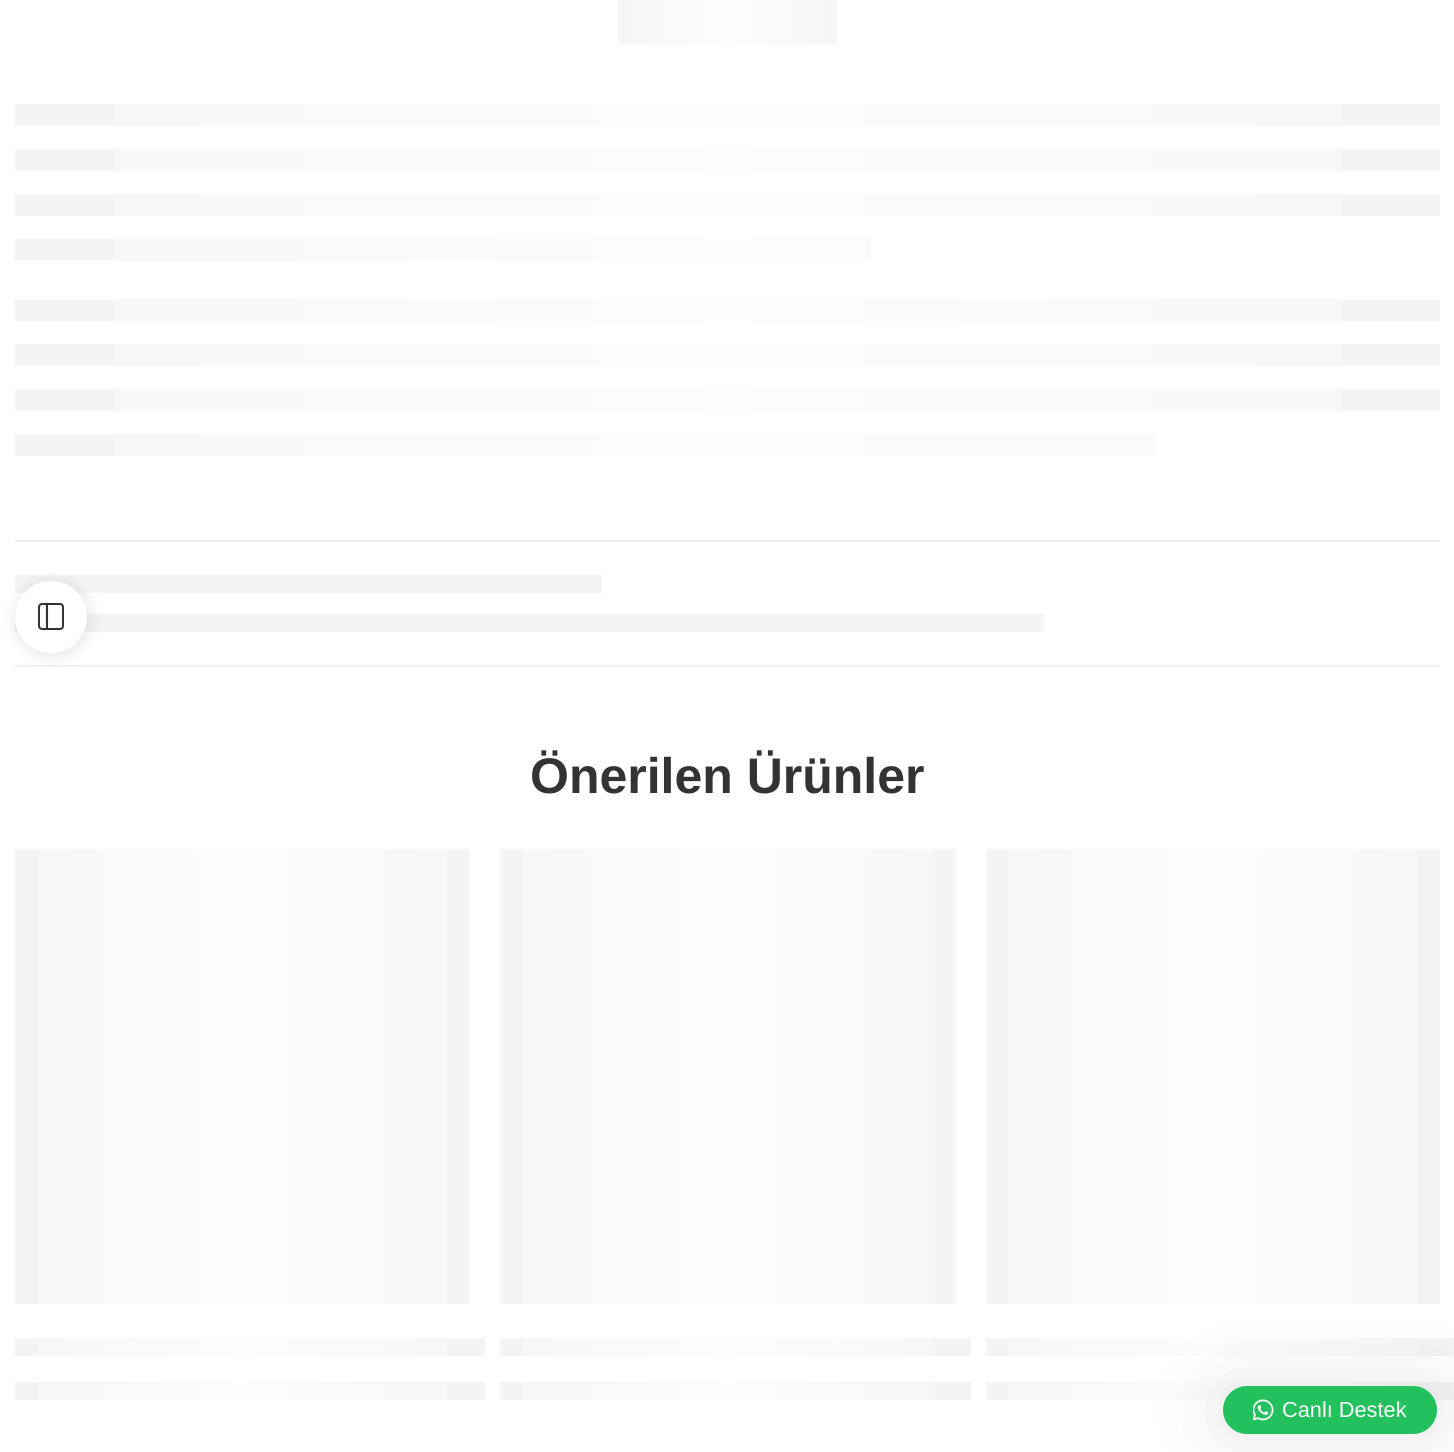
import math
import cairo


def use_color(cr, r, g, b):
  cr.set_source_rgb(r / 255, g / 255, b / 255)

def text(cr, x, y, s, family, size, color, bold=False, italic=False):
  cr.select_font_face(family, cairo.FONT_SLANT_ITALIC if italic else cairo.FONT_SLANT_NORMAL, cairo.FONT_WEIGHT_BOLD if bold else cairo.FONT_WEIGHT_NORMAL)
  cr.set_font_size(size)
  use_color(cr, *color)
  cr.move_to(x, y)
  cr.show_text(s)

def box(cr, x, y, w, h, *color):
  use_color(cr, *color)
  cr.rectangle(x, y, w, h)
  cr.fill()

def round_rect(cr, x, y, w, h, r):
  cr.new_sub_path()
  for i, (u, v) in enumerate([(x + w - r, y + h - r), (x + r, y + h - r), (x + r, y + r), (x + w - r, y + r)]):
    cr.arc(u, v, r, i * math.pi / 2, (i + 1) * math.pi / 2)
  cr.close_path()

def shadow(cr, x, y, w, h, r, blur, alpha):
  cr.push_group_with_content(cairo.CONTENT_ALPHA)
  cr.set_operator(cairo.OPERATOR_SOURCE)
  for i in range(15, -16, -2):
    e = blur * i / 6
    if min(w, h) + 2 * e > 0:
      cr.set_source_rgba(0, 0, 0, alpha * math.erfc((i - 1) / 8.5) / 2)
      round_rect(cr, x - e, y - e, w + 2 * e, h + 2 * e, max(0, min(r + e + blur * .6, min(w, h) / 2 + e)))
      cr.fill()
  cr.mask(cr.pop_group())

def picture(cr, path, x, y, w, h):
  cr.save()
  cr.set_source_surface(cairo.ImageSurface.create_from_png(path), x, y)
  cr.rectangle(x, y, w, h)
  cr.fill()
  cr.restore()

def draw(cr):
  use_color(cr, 255, 255, 255)
  cr.paint()
  gradient = cairo.LinearGradient(509, 13, 947, 13)
  gradient.add_color_stop_rgba(0.2, 0.957, 0.957, 0.957, 1)
  gradient.add_color_stop_rgba(0.5, 0.992, 0.992, 0.992, 1)
  gradient.add_color_stop_rgba(0.8, 0.957, 0.957, 0.957, 1)
  cr.set_source(gradient)
  cr.rectangle(618, 0, 219, 44)
  cr.fill()
  box(cr, 15, 434, 1140, 22, 244, 244, 244)
  box(cr, 15, 389, 1425, 22, 244, 244, 244)
  box(cr, 15, 344, 1425, 22, 244, 244, 244)
  box(cr, 15, 299, 1425, 22, 244, 244, 244)
  box(cr, 15, 239, 855, 22, 244, 244, 244)
  box(cr, 15, 194, 1425, 22, 244, 244, 244)
  box(cr, 15, 149, 1425, 22, 244, 244, 244)
  box(cr, 15, 104, 1425, 22, 244, 244, 244)
  gradient = cairo.LinearGradient(-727, 291, 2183, 291)
  gradient.add_color_stop_rgba(0.2, 1, 1, 1, 0)
  gradient.add_color_stop_rgba(0.5, 1, 1, 1, 0.8)
  gradient.add_color_stop_rgba(0.8, 1, 1, 1, 0)
  cr.set_source(gradient)
  cr.rectangle(114, 104, 1228, 352)
  cr.fill()
  box(cr, 15, 540, 1425, 2, 239, 239, 239)
  box(cr, 15, 665, 1425, 2, 239, 239, 239)
  box(cr, 15, 575, 587, 18, 244, 244, 244)
  box(cr, 15, 614, 1029, 18, 244, 244, 244)
  use_color(cr, 0, 0, 0)
  shadow(cr, 15, 581, 75, 75, 37.5, 7.5, 0.1)
  use_color(cr, 255, 255, 255)
  cr.arc(51, 617, 36, 0, 2 * math.pi)
  cr.fill()
  round_rect(cr, 39, 604, 24, 25, 3)
  use_color(cr, 51, 51, 51)
  cr.stroke()
  cr.new_path()
  cr.move_to(47, 604)
  cr.line_to(47, 629)
  cr.set_line_width(2.1)
  cr.set_line_cap(cairo.LINE_CAP_ROUND)
  cr.set_line_join(cairo.LINE_JOIN_ROUND)
  cr.stroke()
  box(cr, 15, 849, 455, 455, 244, 244, 244)
  box(cr, 15, 1338, 470, 18, 244, 244, 244)
  box(cr, 15, 1382, 470, 18, 244, 244, 244)
  gradient = cairo.LinearGradient(-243, 1142, 728, 1142)
  gradient.add_color_stop_rgba(0.2, 1, 1, 1, 0)
  gradient.add_color_stop_rgba(0.5, 1, 1, 1, 0.8)
  gradient.add_color_stop_rgba(0.8, 1, 1, 1, 0)
  cr.set_source(gradient)
  cr.rectangle(38, 849, 409, 551)
  cr.fill()
  box(cr, 500, 849, 456, 455, 244, 244, 244)
  box(cr, 500, 1338, 471, 18, 244, 244, 244)
  box(cr, 500, 1382, 471, 18, 244, 244, 244)
  gradient = cairo.LinearGradient(243, 1142, 1212, 1142)
  gradient.add_color_stop_rgba(0.2, 1, 1, 1, 0)
  gradient.add_color_stop_rgba(0.5, 1, 1, 1, 0.8)
  gradient.add_color_stop_rgba(0.8, 1, 1, 1, 0)
  cr.set_source(gradient)
  cr.rectangle(523, 849, 409, 551)
  cr.fill()
  box(cr, 986, 849, 454, 455, 244, 244, 244)
  box(cr, 986, 1338, 468, 18, 244, 244, 244)
  box(cr, 986, 1382, 468, 18, 244, 244, 244)
  gradient = cairo.LinearGradient(728, 1142, 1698, 1142)
  gradient.add_color_stop_rgba(0.2, 1, 1, 1, 0)
  gradient.add_color_stop_rgba(0.5, 1, 1, 1, 0.8)
  gradient.add_color_stop_rgba(0.8, 1, 1, 1, 0)
  cr.set_source(gradient)
  cr.rectangle(1008, 849, 410, 551)
  cr.fill()
  use_color(cr, 0, 0, 0)
  shadow(cr, 1223, 1386, 214, 48, 24, 37.5, 0.1)
  use_color(cr, 34, 193, 94)
  round_rect(cr, 1223, 1386, 214, 48, 24)
  cr.fill()
  picture(cr, "img_01.png", 1253, 1399, 21, 22)
  text(cr, 530, 793, "Önerilen Ürünler", "Liberation Sans", 50, (51, 51, 51), bold=True)
  text(cr, 1282, 1417, "Canlı Destek", "Liberation Sans", 21.75, (255, 255, 255))


surface = cairo.ImageSurface(cairo.FORMAT_RGB24, 1454, 1452)
cr = cairo.Context(surface)
options = cairo.FontOptions()
options.set_hint_metrics(cairo.HINT_METRICS_OFF)
options.set_hint_style(cairo.HINT_STYLE_NONE)
cr.set_font_options(options)
cr.set_miter_limit(4)
draw(cr)
surface.write_to_png("out.png")
